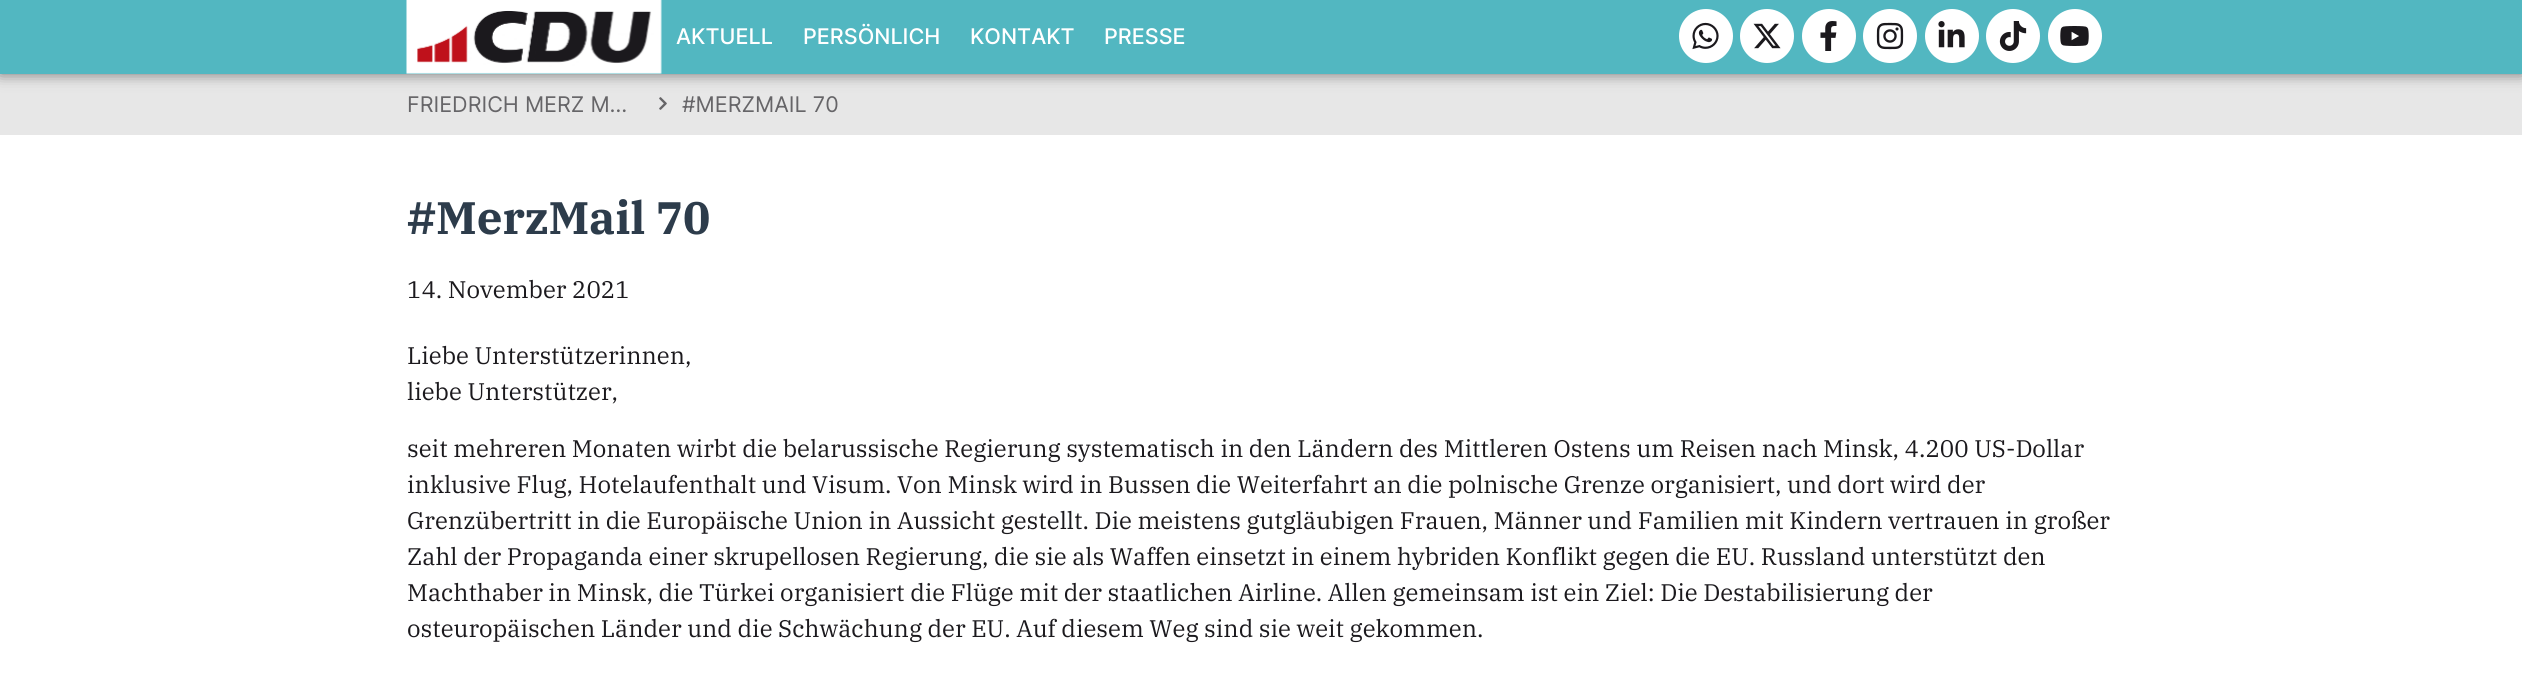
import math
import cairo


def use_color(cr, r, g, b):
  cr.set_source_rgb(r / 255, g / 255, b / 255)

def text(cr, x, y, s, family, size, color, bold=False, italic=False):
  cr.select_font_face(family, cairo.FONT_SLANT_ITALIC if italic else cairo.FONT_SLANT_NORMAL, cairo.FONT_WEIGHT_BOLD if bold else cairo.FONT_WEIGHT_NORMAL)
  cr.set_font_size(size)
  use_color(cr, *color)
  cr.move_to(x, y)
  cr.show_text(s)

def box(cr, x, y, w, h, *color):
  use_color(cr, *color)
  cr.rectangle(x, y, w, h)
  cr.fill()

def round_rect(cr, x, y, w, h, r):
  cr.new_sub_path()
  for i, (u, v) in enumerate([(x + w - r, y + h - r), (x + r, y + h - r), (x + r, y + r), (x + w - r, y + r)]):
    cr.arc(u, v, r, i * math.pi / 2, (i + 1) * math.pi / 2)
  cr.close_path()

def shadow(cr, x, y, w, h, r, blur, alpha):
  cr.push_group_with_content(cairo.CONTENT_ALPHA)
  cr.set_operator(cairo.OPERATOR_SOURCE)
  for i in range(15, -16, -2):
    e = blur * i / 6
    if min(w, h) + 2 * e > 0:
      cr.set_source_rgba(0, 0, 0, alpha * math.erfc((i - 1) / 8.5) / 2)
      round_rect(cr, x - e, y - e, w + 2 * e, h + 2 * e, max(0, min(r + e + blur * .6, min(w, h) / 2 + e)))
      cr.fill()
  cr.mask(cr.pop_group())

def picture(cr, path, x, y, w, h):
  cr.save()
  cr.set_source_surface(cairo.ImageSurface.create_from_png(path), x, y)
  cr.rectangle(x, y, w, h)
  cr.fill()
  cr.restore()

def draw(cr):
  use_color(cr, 231, 231, 231)
  cr.paint()
  picture(cr, "img_09.png", 659, 97, 8, 13)
  use_color(cr, 0, 0, 0)
  shadow(cr, 0, 0, 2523, 74, 0, 7.5, 0.5)
  box(cr, 0, 0, 2522, 74, 82, 183, 193)
  picture(cr, "img_01.png", 406, 0, 256, 74)
  use_color(cr, 255, 255, 255)
  cr.arc(1706, 36, 27, 0, 2 * math.pi)
  cr.fill()
  picture(cr, "img_02.png", 1692, 22, 27, 28)
  cr.arc(1767, 36, 27, 0, 2 * math.pi)
  cr.fill()
  picture(cr, "img_03.png", 1753, 23, 28, 26)
  cr.arc(1829, 36, 27, 0, 2 * math.pi)
  cr.fill()
  picture(cr, "img_04.png", 1820, 21, 17, 30)
  cr.arc(1890, 36, 27, 0, 2 * math.pi)
  cr.fill()
  picture(cr, "img_05.png", 1876, 22, 28, 28)
  cr.arc(1952, 36, 27, 0, 2 * math.pi)
  cr.fill()
  picture(cr, "img_06.png", 1938, 21, 27, 27)
  cr.arc(2013, 36, 27, 0, 2 * math.pi)
  cr.fill()
  picture(cr, "img_07.png", 1999, 21, 28, 30)
  cr.arc(2075, 36, 27, 0, 2 * math.pi)
  cr.fill()
  picture(cr, "img_08.png", 2060, 26, 29, 20)
  box(cr, 0, 135, 2522, 553, 255, 255, 255)
  text(cr, 676, 44, "AKTUELL", "Inter Medium", 21.6, (255, 255, 255))
  text(cr, 803, 44, "PERSÖNLICH", "Inter Medium", 21.6, (255, 255, 255))
  text(cr, 970, 44, "KONTAKT", "Inter Medium", 21.6, (255, 255, 255))
  text(cr, 1104, 44, "PRESSE", "Inter Medium", 21.6, (255, 255, 255))
  text(cr, 407, 112, "FRIEDRICH MERZ M…", "Inter", 21.6, (102, 101, 104))
  text(cr, 682, 112, "#MERZMAIL 70", "Inter", 21.6, (102, 101, 104))
  text(cr, 407, 234, "#MerzMail 70", "IBM Plex Serif", 45.5, (45, 60, 75), bold=True)
  text(cr, 407, 298, "14. November 2021", "IBM Plex Serif", 24, (27, 25, 29))
  text(cr, 407, 364, "Liebe Unterstützerinnen,", "IBM Plex Serif", 24, (27, 25, 29))
  text(cr, 407, 400, "liebe Unterstützer,", "IBM Plex Serif", 24, (27, 25, 29))
  text(cr, 407, 457, "seit mehreren Monaten wirbt die belarussische Regierung systematisch in den Ländern des Mittleren Ostens um Reisen nach Minsk, 4.200 US-Dollar", "IBM Plex Serif", 24, (27, 25, 29))
  text(cr, 407, 493, "inklusive Flug, Hotelaufenthalt und Visum. Von Minsk wird in Bussen die Weiterfahrt an die polnische Grenze organisiert, und dort wird der", "IBM Plex Serif", 24, (27, 25, 29))
  text(cr, 407, 529, "Grenzübertritt in die Europäische Union in Aussicht gestellt. Die meistens gutgläubigen Frauen, Männer und Familien mit Kindern vertrauen in großer", "IBM Plex Serif", 24, (27, 25, 29))
  text(cr, 407, 565, "Zahl der Propaganda einer skrupellosen Regierung, die sie als Waffen einsetzt in einem hybriden Konflikt gegen die EU. Russland unterstützt den", "IBM Plex Serif", 24, (27, 25, 29))
  text(cr, 407, 601, "Machthaber in Minsk, die Türkei organisiert die Flüge mit der staatlichen Airline. Allen gemeinsam ist ein Ziel: Die Destabilisierung der", "IBM Plex Serif", 24, (27, 25, 29))
  text(cr, 407, 637, "osteuropäischen Länder und die Schwächung der EU. Auf diesem Weg sind sie weit gekommen.", "IBM Plex Serif", 24, (27, 25, 29))


surface = cairo.ImageSurface(cairo.FORMAT_RGB24, 2522, 688)
cr = cairo.Context(surface)
options = cairo.FontOptions()
options.set_hint_metrics(cairo.HINT_METRICS_OFF)
options.set_hint_style(cairo.HINT_STYLE_NONE)
cr.set_font_options(options)
cr.set_miter_limit(4)
draw(cr)
surface.write_to_png("out.png")
